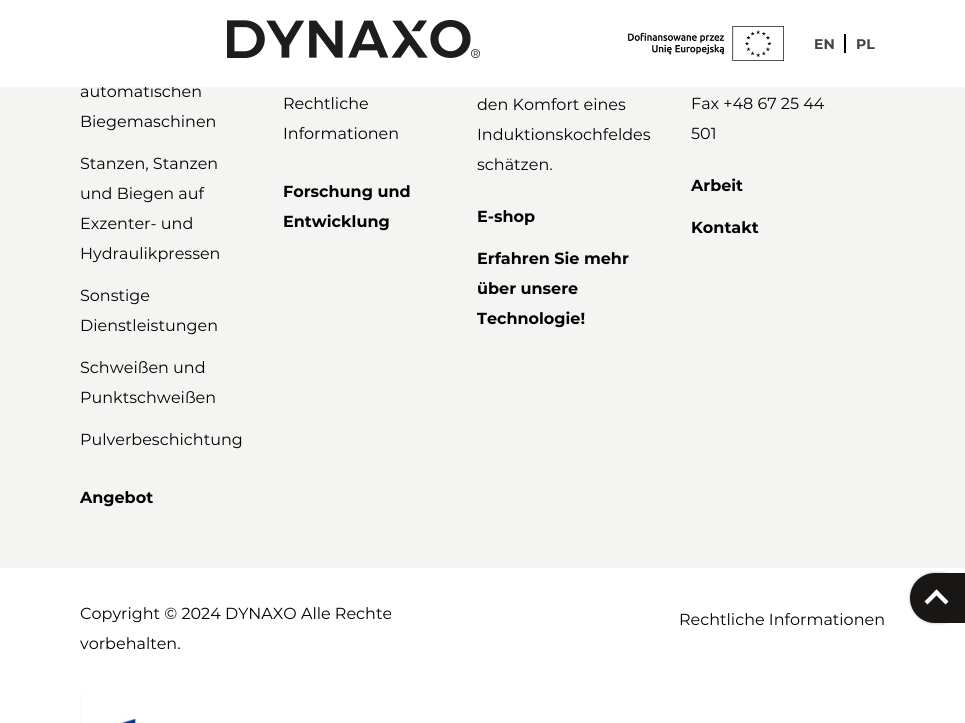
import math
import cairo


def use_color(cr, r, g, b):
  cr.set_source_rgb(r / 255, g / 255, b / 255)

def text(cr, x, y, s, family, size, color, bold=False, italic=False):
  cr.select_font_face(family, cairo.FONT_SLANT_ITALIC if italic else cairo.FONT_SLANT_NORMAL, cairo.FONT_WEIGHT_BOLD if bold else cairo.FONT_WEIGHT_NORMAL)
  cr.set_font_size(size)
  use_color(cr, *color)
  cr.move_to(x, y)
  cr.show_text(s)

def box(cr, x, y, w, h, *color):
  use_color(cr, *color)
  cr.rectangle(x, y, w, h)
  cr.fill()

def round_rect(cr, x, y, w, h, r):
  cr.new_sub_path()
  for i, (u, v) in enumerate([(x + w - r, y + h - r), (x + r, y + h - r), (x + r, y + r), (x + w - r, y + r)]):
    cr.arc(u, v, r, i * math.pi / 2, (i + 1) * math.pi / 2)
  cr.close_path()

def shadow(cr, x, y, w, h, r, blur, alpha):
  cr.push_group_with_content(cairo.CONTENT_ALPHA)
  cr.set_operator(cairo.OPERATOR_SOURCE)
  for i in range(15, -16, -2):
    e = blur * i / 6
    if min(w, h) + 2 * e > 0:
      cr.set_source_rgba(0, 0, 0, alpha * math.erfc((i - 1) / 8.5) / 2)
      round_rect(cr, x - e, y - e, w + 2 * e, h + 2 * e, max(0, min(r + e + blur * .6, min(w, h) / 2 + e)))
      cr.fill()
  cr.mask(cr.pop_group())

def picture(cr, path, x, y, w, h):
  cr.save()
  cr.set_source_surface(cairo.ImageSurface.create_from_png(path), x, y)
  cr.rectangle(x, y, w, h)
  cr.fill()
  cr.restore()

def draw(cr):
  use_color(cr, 255, 255, 255)
  cr.paint()
  picture(cr, "img_01.png", 227, 20, 253, 38)
  picture(cr, "img_02.png", 628, 26, 156, 35)
  box(cr, 844, 34, 2, 19, 0, 0, 0)
  box(cr, 0, 87, 965, 481, 244, 244, 242)
  picture(cr, "img_03.png", 80, 694, 57, 29)
  use_color(cr, 0, 0, 0)
  shadow(cr, 910, 573, 55, 50, 25, 1.5, 0.3)
  use_color(cr, 24, 23, 22)
  cr.new_path()
  cr.move_to(935, 573)
  cr.line_to(965, 573)
  cr.line_to(965, 623)
  cr.line_to(935, 623)
  cr.curve_to(921, 623, 910, 612, 910, 598)
  cr.curve_to(910, 584, 921, 573, 935, 573)
  cr.close_path()
  cr.fill()
  use_color(cr, 255, 255, 255)
  cr.new_path()
  cr.move_to(936.5, 589.5)
  cr.line_to(948.5, 601.5)
  cr.line_to(945.5, 604.5)
  cr.line_to(933.5, 592.5)
  cr.close_path()
  cr.fill()
  cr.new_path()
  cr.move_to(936.5, 589.5)
  cr.line_to(939.5, 592.5)
  cr.line_to(927.5, 604.5)
  cr.line_to(924.5, 601.5)
  cr.close_path()
  cr.fill()
  text(cr, 814, 49, "EN", "Montserrat", 14, (68, 68, 68), bold=True)
  text(cr, 856, 49, "PL", "Montserrat", 14, (68, 68, 68), bold=True)
  text(cr, 80, 97, "automatischen", "Montserrat", 16, (1, 1, 1))
  box(cr, 102, 85, 72, 2, 255, 255, 255)
  text(cr, 80, 127, "Biegemaschinen", "Montserrat", 16, (1, 1, 1))
  text(cr, 80, 169, "Stanzen, Stanzen", "Montserrat", 16, (1, 1, 1))
  text(cr, 80, 199, "und Biegen auf", "Montserrat", 16, (1, 1, 1))
  text(cr, 80, 229, "Exzenter- und", "Montserrat", 16, (1, 1, 1))
  text(cr, 80, 259, "Hydraulikpressen", "Montserrat", 16, (1, 1, 1))
  text(cr, 80, 301, "Sonstige", "Montserrat", 16, (1, 1, 1))
  text(cr, 80, 331, "Dienstleistungen", "Montserrat", 16, (1, 1, 1))
  text(cr, 80, 373, "Schweißen und", "Montserrat", 16, (1, 1, 1))
  text(cr, 80, 403, "Punktschweißen", "Montserrat", 16, (1, 1, 1))
  text(cr, 80, 445, "Pulverbeschichtung", "Montserrat", 16, (1, 1, 1))
  text(cr, 80, 503, "Angebot", "Montserrat", 16, (1, 1, 1), bold=True)
  text(cr, 283, 109, "Rechtliche", "Montserrat", 16, (1, 1, 1))
  text(cr, 283, 139, "Informationen", "Montserrat", 16, (1, 1, 1))
  text(cr, 283, 197, "Forschung und", "Montserrat", 16, (1, 1, 1), bold=True)
  text(cr, 283, 227, "Entwicklung", "Montserrat", 16, (1, 1, 1), bold=True)
  text(cr, 477, 110, "den Komfort eines", "Montserrat", 16, (1, 1, 1))
  text(cr, 477, 140, "Induktionskochfeldes", "Montserrat", 16, (1, 1, 1))
  text(cr, 477, 170, "schätzen.", "Montserrat", 16, (1, 1, 1))
  text(cr, 477, 222, "E-shop", "Montserrat", 16, (1, 1, 1), bold=True)
  text(cr, 477, 264, "Erfahren Sie mehr", "Montserrat", 16, (1, 1, 1), bold=True)
  text(cr, 477, 294, "über unsere", "Montserrat", 16, (1, 1, 1), bold=True)
  text(cr, 477, 324, "Technologie!", "Montserrat", 16, (1, 1, 1), bold=True)
  text(cr, 691, 109, "Fax +48 67 25 44", "Montserrat", 16, (1, 1, 1))
  text(cr, 691, 139, "501", "Montserrat", 16, (1, 1, 1))
  text(cr, 691, 191, "Arbeit", "Montserrat", 16, (1, 1, 1), bold=True)
  text(cr, 691, 233, "Kontakt", "Montserrat", 16, (1, 1, 1), bold=True)
  text(cr, 80, 619, "Copyright © 2024 DYNAXO Alle Rechte", "Montserrat", 16, (1, 1, 1))
  text(cr, 80, 649, "vorbehalten.", "Montserrat", 16, (1, 1, 1))
  text(cr, 679, 625, "Rechtliche Informationen", "Montserrat", 16, (1, 1, 1))


surface = cairo.ImageSurface(cairo.FORMAT_RGB24, 965, 723)
cr = cairo.Context(surface)
options = cairo.FontOptions()
options.set_hint_metrics(cairo.HINT_METRICS_OFF)
options.set_hint_style(cairo.HINT_STYLE_NONE)
cr.set_font_options(options)
cr.set_miter_limit(4)
draw(cr)
surface.write_to_png("out.png")
